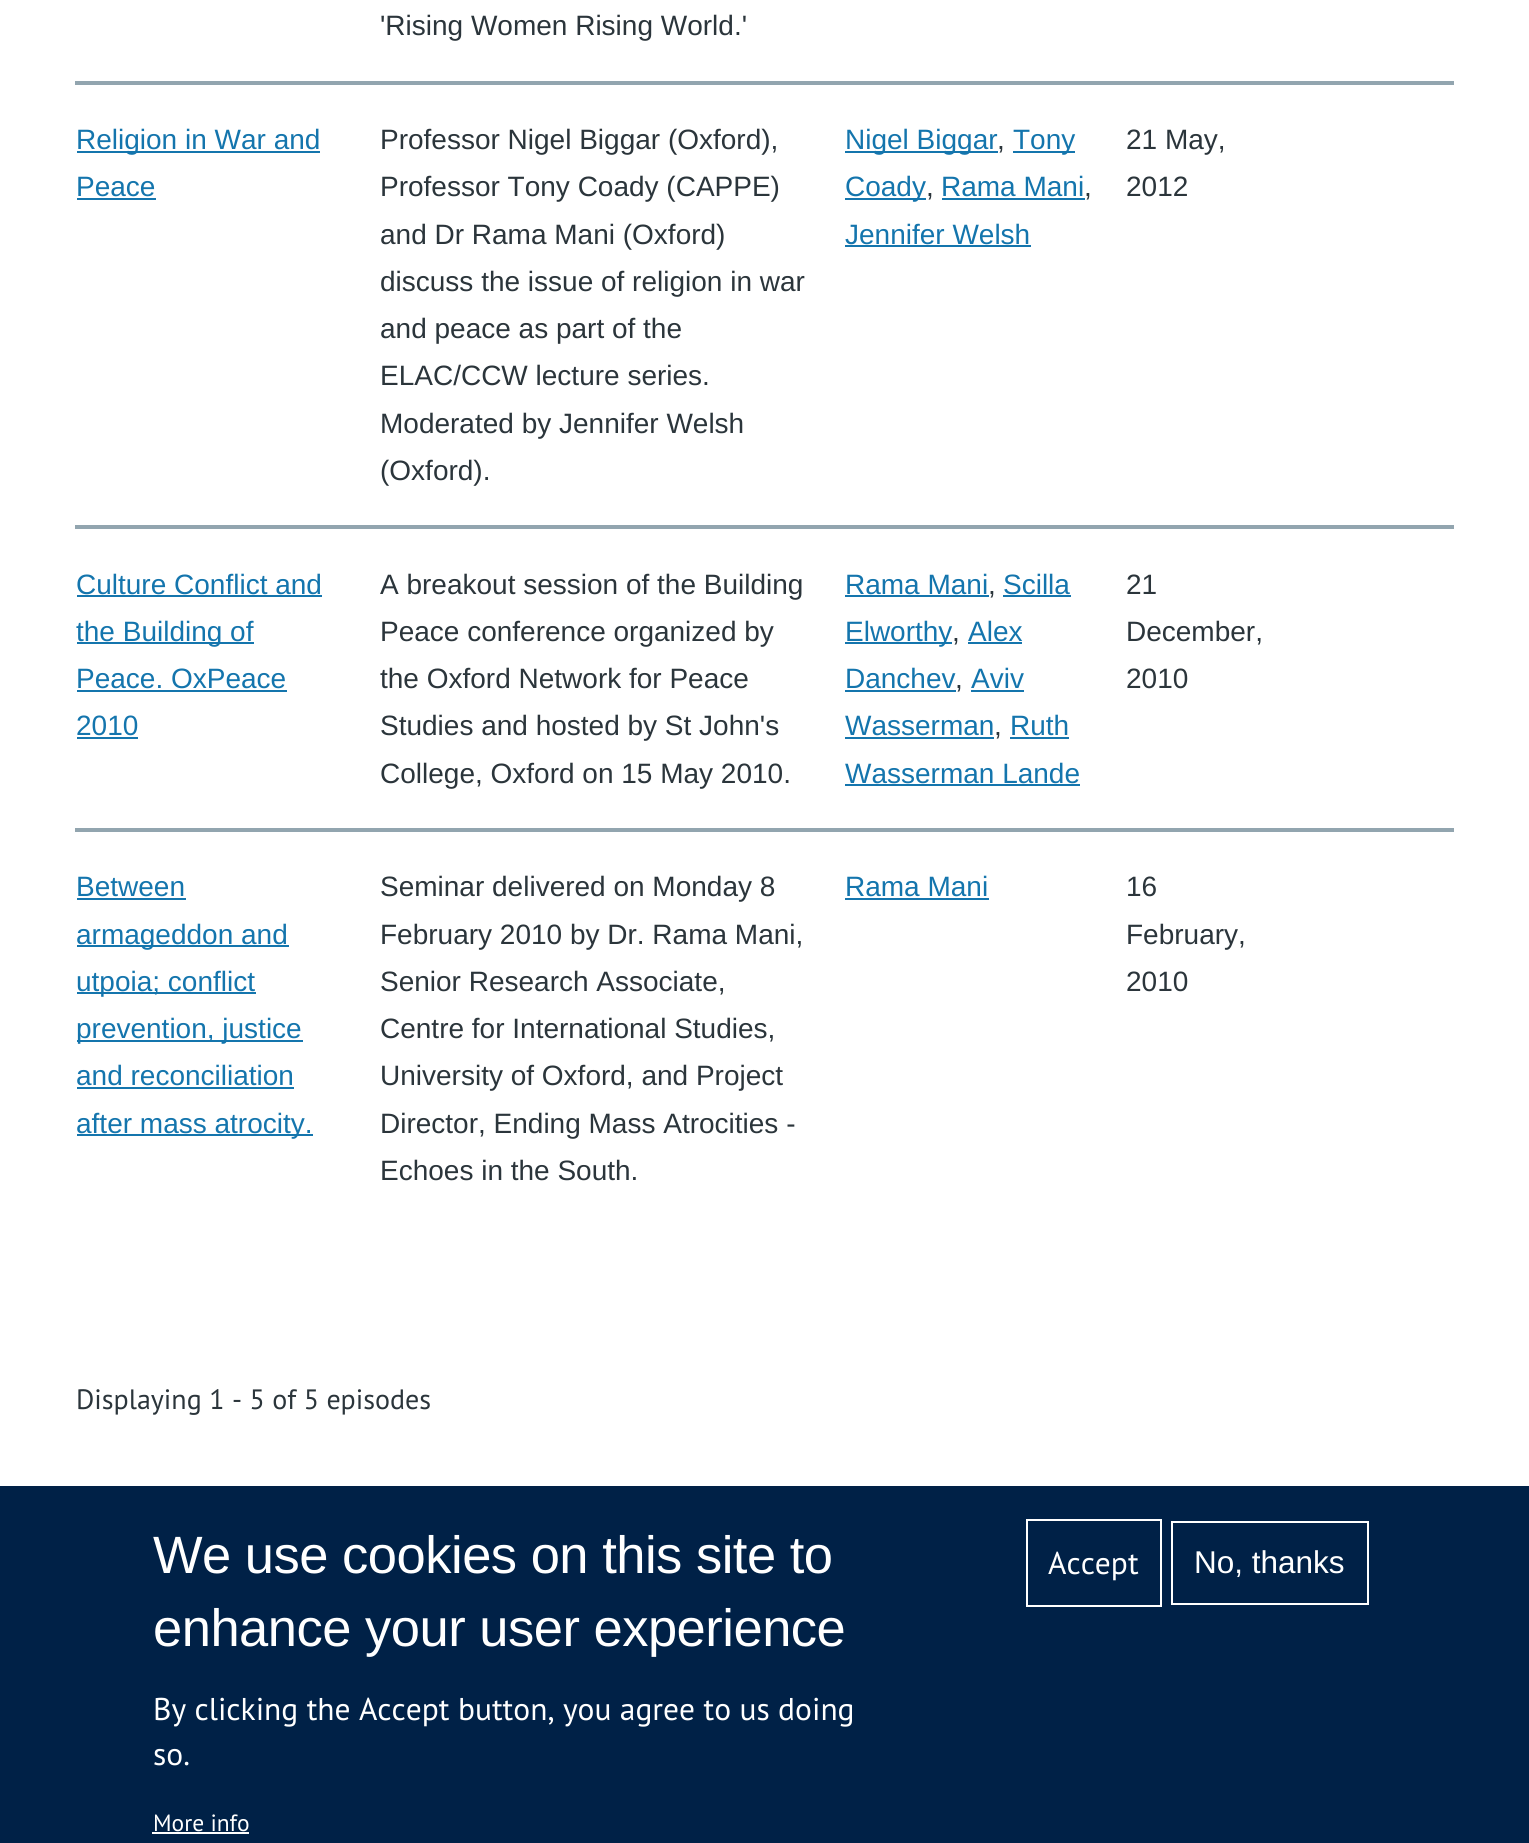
import math
import cairo


def use_color(cr, r, g, b):
  cr.set_source_rgb(r / 255, g / 255, b / 255)

def text(cr, x, y, s, family, size, color, bold=False, italic=False):
  cr.select_font_face(family, cairo.FONT_SLANT_ITALIC if italic else cairo.FONT_SLANT_NORMAL, cairo.FONT_WEIGHT_BOLD if bold else cairo.FONT_WEIGHT_NORMAL)
  cr.set_font_size(size)
  use_color(cr, *color)
  cr.move_to(x, y)
  cr.show_text(s)

def spaced_text(cr, x, y, s, letter, word):
  cr.move_to(x, y)
  for ch in s:
    cr.show_text(ch)
    cr.rel_move_to(letter + word * (ch == ' '), 0)

def box(cr, x, y, w, h, *color):
  use_color(cr, *color)
  cr.rectangle(x, y, w, h)
  cr.fill()

def draw(cr):
  use_color(cr, 255, 255, 255)
  cr.paint()
  box(cr, 75, 81, 1379, 4, 146, 165, 175)
  box(cr, 77, 151, 243, 2, 20, 117, 173)
  box(cr, 77, 198, 79, 2, 20, 117, 173)
  box(cr, 845, 151, 153, 2, 20, 117, 173)
  box(cr, 1013, 151, 62, 2, 20, 117, 173)
  box(cr, 845, 198, 81, 2, 20, 117, 173)
  box(cr, 942, 198, 143, 2, 20, 117, 173)
  box(cr, 845, 245, 186, 2, 20, 117, 173)
  box(cr, 75, 525, 1379, 4, 146, 165, 175)
  box(cr, 77, 595, 245, 2, 20, 117, 173)
  box(cr, 77, 642, 177, 2, 20, 117, 173)
  box(cr, 77, 690, 210, 2, 20, 117, 173)
  box(cr, 77, 737, 61, 2, 20, 117, 173)
  box(cr, 845, 595, 144, 2, 20, 117, 173)
  box(cr, 1003, 595, 68, 2, 20, 117, 173)
  box(cr, 845, 642, 107, 2, 20, 117, 173)
  box(cr, 968, 642, 54, 2, 20, 117, 173)
  box(cr, 845, 690, 111, 2, 20, 117, 173)
  box(cr, 971, 690, 53, 2, 20, 117, 173)
  box(cr, 845, 737, 149, 2, 20, 117, 173)
  box(cr, 1010, 737, 59, 2, 20, 117, 173)
  box(cr, 845, 784, 235, 2, 20, 117, 173)
  box(cr, 75, 828, 1379, 4, 146, 165, 175)
  box(cr, 77, 898, 109, 2, 20, 117, 173)
  box(cr, 77, 945, 212, 2, 20, 117, 173)
  box(cr, 77, 992, 179, 2, 20, 117, 173)
  box(cr, 77, 1040, 226, 2, 20, 117, 173)
  box(cr, 77, 1087, 217, 2, 20, 117, 173)
  box(cr, 77, 1134, 236, 2, 20, 117, 173)
  box(cr, 845, 898, 144, 2, 20, 117, 173)
  box(cr, 0, 1486, 1529, 357, 0, 33, 71)
  box(cr, 152, 1832, 97, 2, 255, 255, 255)
  cr.rectangle(1027, 1520, 134, 86)
  cr.stroke()
  cr.rectangle(1172, 1522, 196, 82)
  cr.stroke()
  text(cr, 380, 35, "'Rising Women Rising World.'", "Liberation Sans", 28, (43, 53, 59))
  text(cr, 76, 149, "Religion in War and", "Liberation Sans", 28, (20, 117, 173))
  text(cr, 76, 196, "Peace", "Liberation Sans", 28, (20, 117, 173))
  text(cr, 380, 149, "Professor Nigel Biggar (Oxford),", "Liberation Sans", 28, (43, 53, 59))
  text(cr, 380, 196, "Professor Tony Coady (CAPPE)", "Liberation Sans", 28, (43, 53, 59))
  text(cr, 380, 244, "and Dr Rama Mani (Oxford)", "Liberation Sans", 28, (43, 53, 59))
  text(cr, 380, 291, "discuss the issue of religion in war", "Liberation Sans", 28, (43, 53, 59))
  text(cr, 380, 338, "and peace as part of the", "Liberation Sans", 28, (43, 53, 59))
  text(cr, 380, 385, "ELAC/CCW lecture series.", "Liberation Sans", 28, (43, 53, 59))
  text(cr, 380, 433, "Moderated by Jennifer Welsh", "Liberation Sans", 28, (43, 53, 59))
  text(cr, 380, 480, "(Oxford).", "Liberation Sans", 28, (43, 53, 59))
  text(cr, 845, 149, "Nigel Biggar", "Liberation Sans", 28, (20, 117, 173))
  text(cr, 997, 149, ",", "Liberation Sans", 28, (43, 53, 59))
  text(cr, 1013, 149, "Tony", "Liberation Sans", 28, (20, 117, 173))
  text(cr, 845, 196, "Coady", "Liberation Sans", 28, (20, 117, 173))
  text(cr, 926, 196, ",", "Liberation Sans", 28, (43, 53, 59))
  text(cr, 941, 196, "Rama Mani", "Liberation Sans", 28, (20, 117, 173))
  text(cr, 1084, 196, ",", "Liberation Sans", 28, (43, 53, 59))
  text(cr, 845, 244, "Jennifer Welsh", "Liberation Sans", 28, (20, 117, 173))
  text(cr, 1126, 149, "21 May,", "Liberation Sans", 28, (43, 53, 59))
  text(cr, 1126, 196, "2012", "Liberation Sans", 28, (43, 53, 59))
  text(cr, 76, 594, "Culture Conflict and", "Liberation Sans", 28, (20, 117, 173))
  text(cr, 76, 641, "the Building of", "Liberation Sans", 28, (20, 117, 173))
  text(cr, 76, 688, "Peace. OxPeace", "Liberation Sans", 28, (20, 117, 173))
  text(cr, 76, 735, "2010", "Liberation Sans", 28, (20, 117, 173))
  text(cr, 380, 594, "A breakout session of the Building", "Liberation Sans", 28, (43, 53, 59))
  text(cr, 380, 641, "Peace conference organized by", "Liberation Sans", 28, (43, 53, 59))
  text(cr, 380, 688, "the Oxford Network for Peace", "Liberation Sans", 28, (43, 53, 59))
  text(cr, 380, 735, "Studies and hosted by St John's", "Liberation Sans", 28, (43, 53, 59))
  text(cr, 380, 783, "College, Oxford on 15 May 2010.", "Liberation Sans", 28, (43, 53, 59))
  text(cr, 845, 594, "Rama Mani", "Liberation Sans", 28, (20, 117, 173))
  text(cr, 988, 594, ",", "Liberation Sans", 28, (43, 53, 59))
  text(cr, 1003, 594, "Scilla", "Liberation Sans", 28, (20, 117, 173))
  text(cr, 845, 641, "Elworthy", "Liberation Sans", 28, (20, 117, 173))
  text(cr, 952, 641, ",", "Liberation Sans", 28, (43, 53, 59))
  text(cr, 968, 641, "Alex", "Liberation Sans", 28, (20, 117, 173))
  text(cr, 845, 688, "Danchev", "Liberation Sans", 28, (20, 117, 173))
  text(cr, 955, 688, ",", "Liberation Sans", 28, (43, 53, 59))
  text(cr, 971, 688, "Aviv", "Liberation Sans", 28, (20, 117, 173))
  text(cr, 845, 735, "Wasserman", "Liberation Sans", 28, (20, 117, 173))
  text(cr, 994, 735, ",", "Liberation Sans", 28, (43, 53, 59))
  text(cr, 1010, 735, "Ruth", "Liberation Sans", 28, (20, 117, 173))
  text(cr, 845, 783, "Wasserman Lande", "Liberation Sans", 28, (20, 117, 173))
  text(cr, 1126, 594, "21", "Liberation Sans", 28, (43, 53, 59))
  text(cr, 1126, 641, "December,", "Liberation Sans", 28, (43, 53, 59))
  text(cr, 1126, 688, "2010", "Liberation Sans", 28, (43, 53, 59))
  text(cr, 76, 896, "Between", "Liberation Sans", 28, (20, 117, 173))
  text(cr, 76, 944, "armageddon and", "Liberation Sans", 28, (20, 117, 173))
  text(cr, 76, 991, "utpoia; conflict", "Liberation Sans", 28, (20, 117, 173))
  text(cr, 76, 1038, "prevention, justice", "Liberation Sans", 28, (20, 117, 173))
  text(cr, 76, 1085, "and reconciliation", "Liberation Sans", 28, (20, 117, 173))
  text(cr, 76, 1133, "after mass atrocity.", "Liberation Sans", 28, (20, 117, 173))
  text(cr, 380, 896, "Seminar delivered on Monday 8", "Liberation Sans", 28, (43, 53, 59))
  text(cr, 380, 944, "February 2010 by Dr. Rama Mani,", "Liberation Sans", 28, (43, 53, 59))
  text(cr, 380, 991, "Senior Research Associate,", "Liberation Sans", 28, (43, 53, 59))
  text(cr, 380, 1038, "Centre for International Studies,", "Liberation Sans", 28, (43, 53, 59))
  text(cr, 380, 1085, "University of Oxford, and Project", "Liberation Sans", 28, (43, 53, 59))
  text(cr, 380, 1133, "Director, Ending Mass Atrocities -", "Liberation Sans", 28, (43, 53, 59))
  text(cr, 380, 1180, "Echoes in the South.", "Liberation Sans", 28, (43, 53, 59))
  text(cr, 845, 896, "Rama Mani", "Liberation Sans", 28, (20, 117, 173))
  text(cr, 1126, 896, "16", "Liberation Sans", 28, (43, 53, 59))
  text(cr, 1126, 944, "February,", "Liberation Sans", 28, (43, 53, 59))
  text(cr, 1126, 991, "2010", "Liberation Sans", 28, (43, 53, 59))
  text(cr, 76, 1409, "Displaying 1 - 5 of 5 episodes", "PT Sans", 28, (43, 53, 59))
  cr.select_font_face("Liberation Sans")
  cr.set_font_size(52.5)
  use_color(cr, 255, 255, 255)
  spaced_text(cr, 153, 1573, "We use cookies on this site to", -0.5, 0)
  spaced_text(cr, 153, 1646, "enhance your user experience", -0.5, 0)
  text(cr, 153, 1720, "By clicking the Accept button, you agree to us doing", "PT Sans", 31.5, (255, 255, 255))
  text(cr, 153, 1765, "so.", "PT Sans", 31.5, (255, 255, 255))
  text(cr, 153, 1831, "More info", "PT Sans", 23.5, (255, 255, 255))
  text(cr, 1048, 1574, "Accept", "PT Sans", 31.5, (255, 255, 255))
  text(cr, 1194, 1573, "No, thanks", "Liberation Sans", 31.5, (255, 255, 255))


surface = cairo.ImageSurface(cairo.FORMAT_RGB24, 1529, 1843)
cr = cairo.Context(surface)
options = cairo.FontOptions()
options.set_hint_metrics(cairo.HINT_METRICS_OFF)
options.set_hint_style(cairo.HINT_STYLE_NONE)
cr.set_font_options(options)
cr.set_miter_limit(4)
draw(cr)
surface.write_to_png("out.png")
